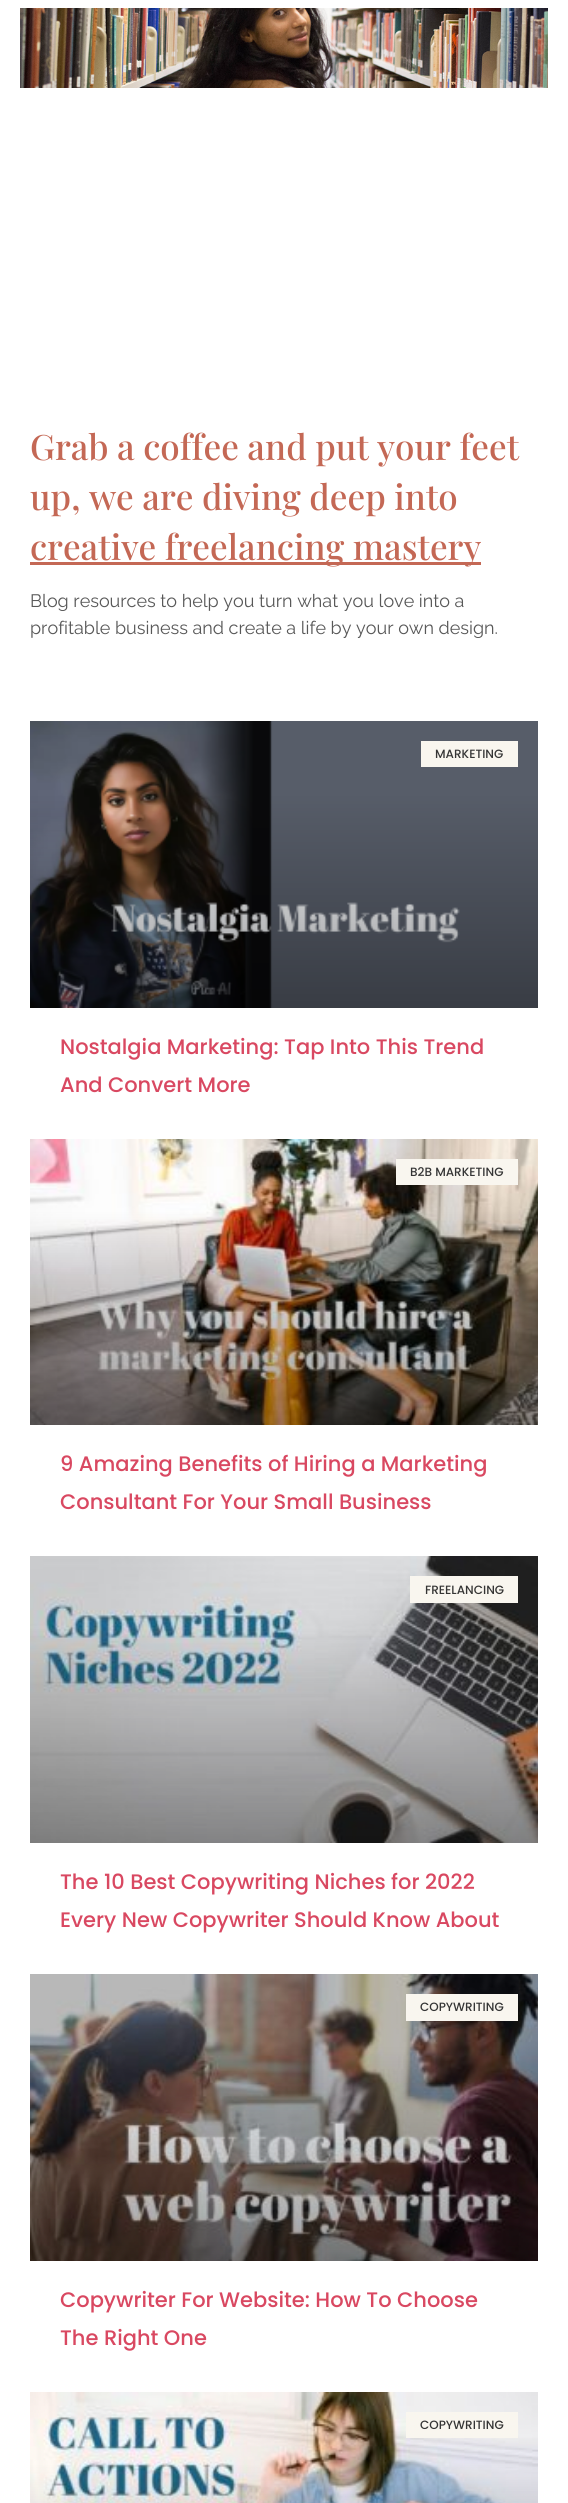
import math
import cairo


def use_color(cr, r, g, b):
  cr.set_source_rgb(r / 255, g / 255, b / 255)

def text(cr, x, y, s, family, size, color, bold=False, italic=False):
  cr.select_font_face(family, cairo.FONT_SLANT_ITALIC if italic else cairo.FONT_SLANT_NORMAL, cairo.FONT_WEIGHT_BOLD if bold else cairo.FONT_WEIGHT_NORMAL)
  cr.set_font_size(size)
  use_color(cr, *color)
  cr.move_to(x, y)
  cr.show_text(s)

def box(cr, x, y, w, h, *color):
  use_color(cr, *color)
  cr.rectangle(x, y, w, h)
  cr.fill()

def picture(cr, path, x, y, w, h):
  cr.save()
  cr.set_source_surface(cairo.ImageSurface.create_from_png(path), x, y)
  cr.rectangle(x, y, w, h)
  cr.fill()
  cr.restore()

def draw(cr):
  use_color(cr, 255, 255, 255)
  cr.paint()
  picture(cr, "img_01.png", 20, 8, 528, 80)
  box(cr, 30, 562, 451, 3, 196, 104, 85)
  picture(cr, "img_02.png", 30, 721, 508, 287)
  box(cr, 421, 741, 97, 26, 249, 246, 239)
  picture(cr, "img_03.png", 30, 1139, 508, 286)
  box(cr, 396, 1159, 122, 26, 249, 246, 239)
  picture(cr, "img_04.png", 30, 1556, 508, 287)
  box(cr, 410, 1576, 108, 27, 249, 246, 239)
  picture(cr, "img_05.png", 30, 1974, 508, 287)
  box(cr, 406, 1994, 112, 27, 249, 246, 239)
  picture(cr, "img_06.png", 30, 2392, 508, 111)
  box(cr, 406, 2412, 112, 26, 249, 246, 239)
  text(cr, 30, 460, "Grab a coffee and put your feet", "Playfair Display Medium", 35, (196, 104, 85))
  text(cr, 30, 510, "up, we are diving deep into", "Playfair Display Medium", 35, (196, 104, 85))
  text(cr, 30, 560, "creative freelancing mastery", "Playfair Display Medium", 35, (196, 104, 85))
  text(cr, 30, 607, "Blog resources to help you turn what you love into a", "Raleway", 18, (88, 88, 88))
  text(cr, 30, 634, "profitable business and create a life by your own design.", "Raleway", 18, (88, 88, 88))
  text(cr, 435, 758, "MARKETING", "Poppins Medium", 12, (53, 53, 53))
  text(cr, 60, 1054, "Nostalgia Marketing: Tap Into This Trend", "Poppins Medium", 21, (217, 72, 97))
  text(cr, 60, 1092, "And Convert More", "Poppins Medium", 21, (217, 72, 97))
  text(cr, 410, 1176, "B2B MARKETING", "Poppins Medium", 12, (53, 53, 53))
  text(cr, 60, 1471, "9 Amazing Benefits of Hiring a Marketing", "Poppins Medium", 21, (217, 72, 97))
  text(cr, 60, 1509, "Consultant For Your Small Business", "Poppins Medium", 21, (217, 72, 97))
  text(cr, 425, 1594, "FREELANCING", "Poppins Medium", 12, (53, 53, 53))
  text(cr, 60, 1889, "The 10 Best Copywriting Niches for 2022", "Poppins Medium", 21, (217, 72, 97))
  text(cr, 60, 1927, "Every New Copywriter Should Know About", "Poppins Medium", 21, (217, 72, 97))
  text(cr, 420, 2011, "COPYWRITING", "Poppins Medium", 12, (53, 53, 53))
  text(cr, 60, 2307, "Copywriter For Website: How To Choose", "Poppins Medium", 21, (217, 72, 97))
  text(cr, 60, 2345, "The Right One", "Poppins Medium", 21, (217, 72, 97))
  text(cr, 420, 2429, "COPYWRITING", "Poppins Medium", 12, (53, 53, 53))


surface = cairo.ImageSurface(cairo.FORMAT_RGB24, 568, 2503)
cr = cairo.Context(surface)
options = cairo.FontOptions()
options.set_hint_metrics(cairo.HINT_METRICS_OFF)
options.set_hint_style(cairo.HINT_STYLE_NONE)
cr.set_font_options(options)
cr.set_miter_limit(4)
draw(cr)
surface.write_to_png("out.png")
